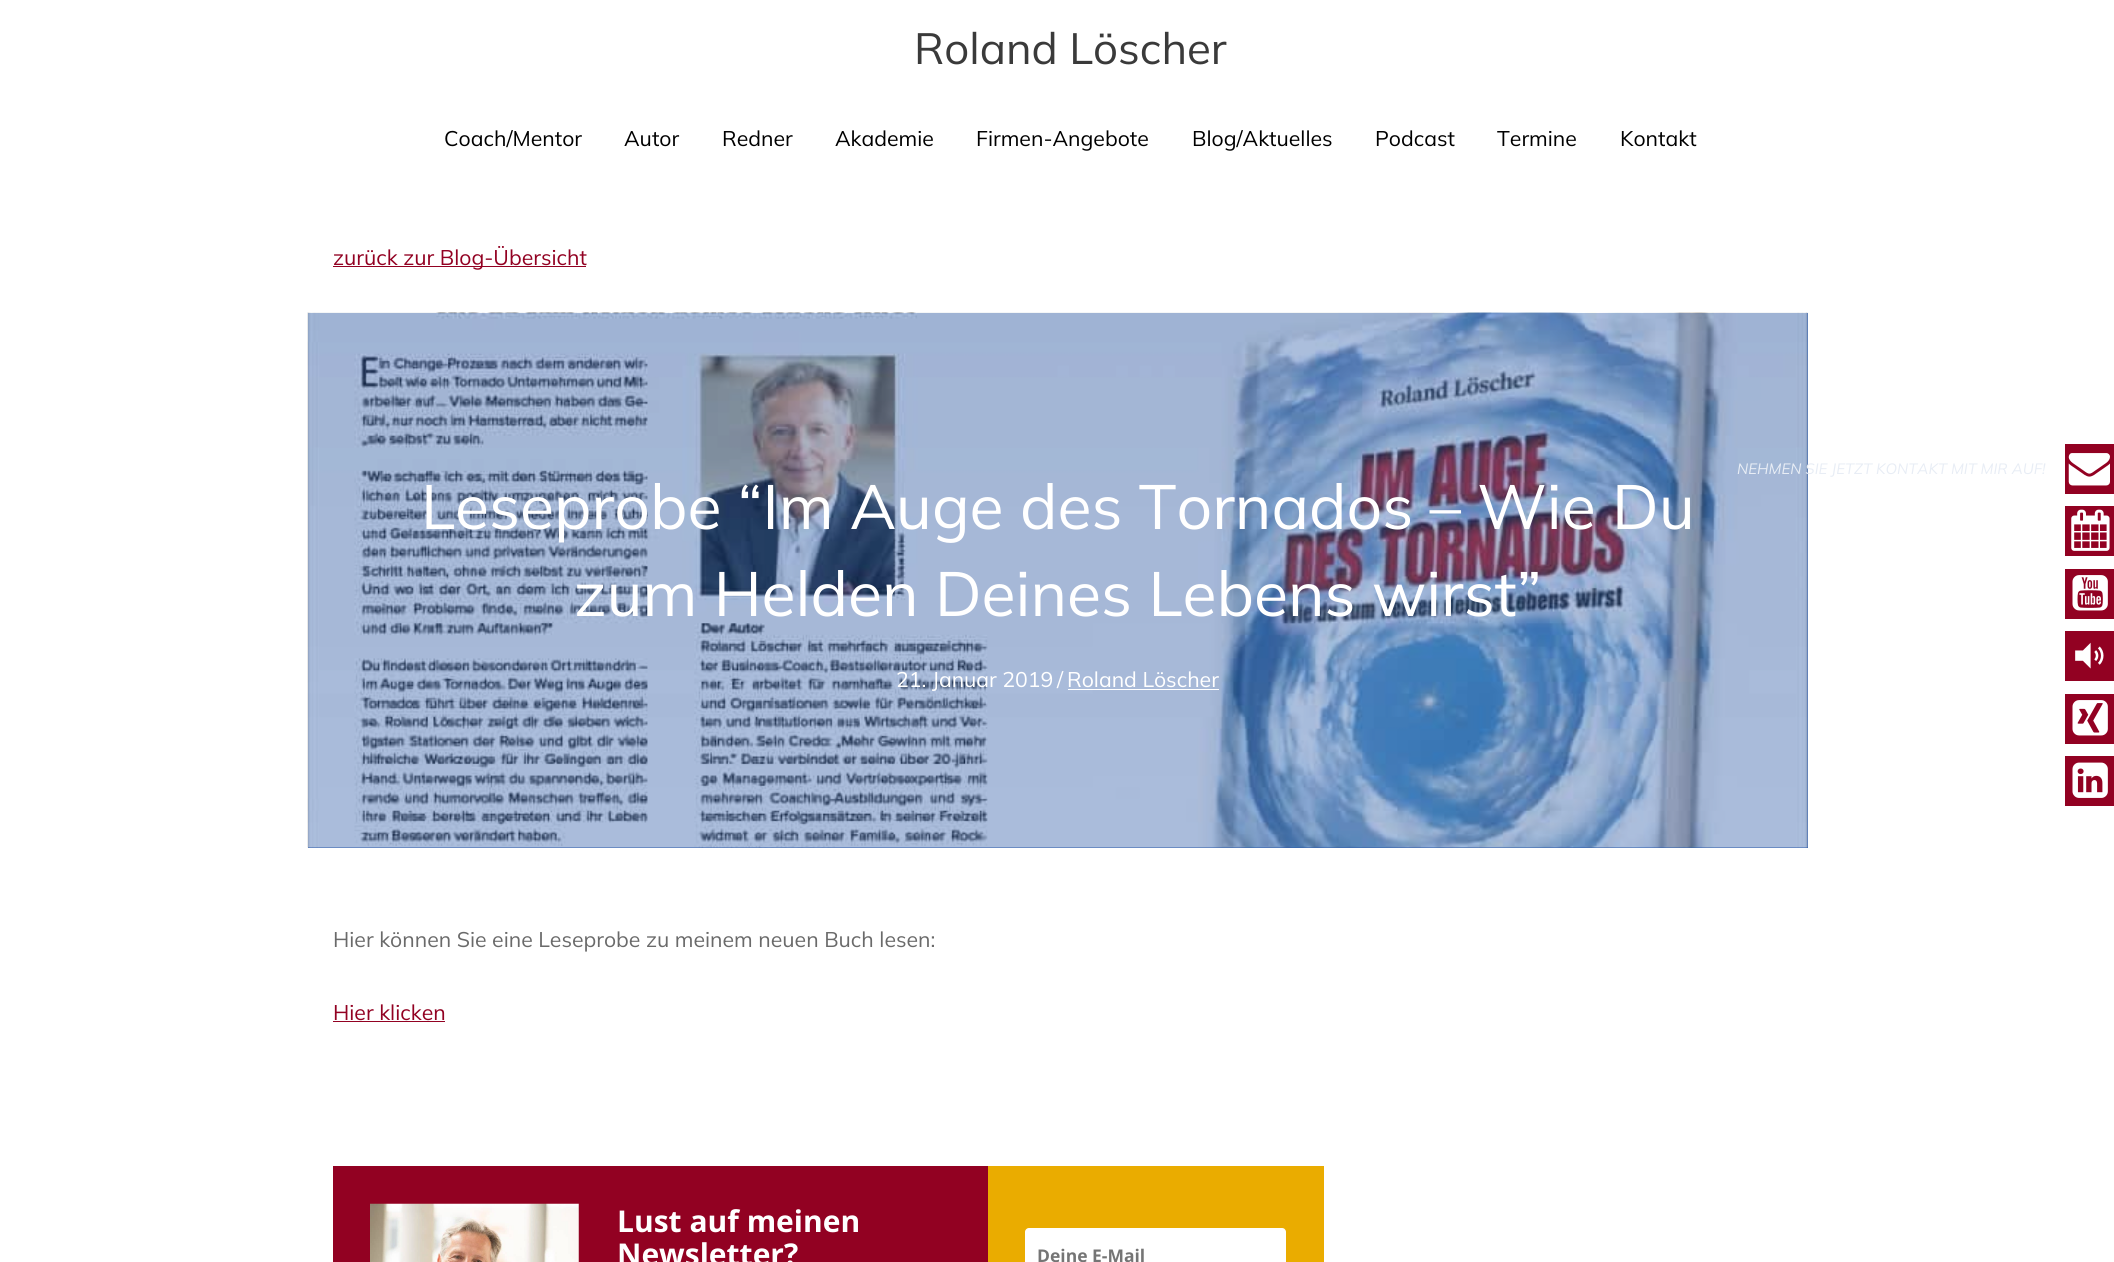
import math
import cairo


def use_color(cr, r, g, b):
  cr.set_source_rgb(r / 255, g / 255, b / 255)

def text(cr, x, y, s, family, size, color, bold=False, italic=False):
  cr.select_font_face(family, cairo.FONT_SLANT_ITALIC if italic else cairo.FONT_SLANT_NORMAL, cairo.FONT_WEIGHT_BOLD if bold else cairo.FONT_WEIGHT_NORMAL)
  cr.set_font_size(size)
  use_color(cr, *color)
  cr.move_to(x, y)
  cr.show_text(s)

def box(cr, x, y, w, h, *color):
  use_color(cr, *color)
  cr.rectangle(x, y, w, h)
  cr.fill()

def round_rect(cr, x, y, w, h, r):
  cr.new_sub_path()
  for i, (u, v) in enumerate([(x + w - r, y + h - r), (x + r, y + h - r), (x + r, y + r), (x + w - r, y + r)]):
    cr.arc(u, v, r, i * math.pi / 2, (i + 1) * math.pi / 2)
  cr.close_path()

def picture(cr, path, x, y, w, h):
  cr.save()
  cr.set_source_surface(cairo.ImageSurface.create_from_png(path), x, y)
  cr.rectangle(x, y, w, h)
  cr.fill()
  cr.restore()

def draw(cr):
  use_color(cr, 255, 255, 255)
  cr.paint()
  box(cr, 333, 266, 253, 1, 146, 1, 34)
  box(cr, 308, 313, 1500, 535, 47, 93, 170)
  picture(cr, "img_01.png", 307, 312, 1501, 536)
  box(cr, 1068, 689, 151, 1, 255, 255, 255)
  box(cr, 333, 1021, 112, 1, 146, 1, 34)
  box(cr, 333, 1166, 655, 96, 146, 1, 34)
  picture(cr, "img_02.png", 370, 1203, 209, 59)
  box(cr, 988, 1166, 336, 96, 234, 172, 0)
  use_color(cr, 255, 255, 255)
  round_rect(cr, 1025, 1228, 261, 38, 4)
  cr.fill()
  box(cr, 2065, 444, 49, 50, 146, 1, 34)
  picture(cr, "img_03.png", 2068, 453, 42, 33)
  box(cr, 2065, 506, 49, 50, 146, 1, 34)
  picture(cr, "img_04.png", 2071, 509, 39, 42)
  box(cr, 2065, 569, 49, 50, 146, 1, 34)
  picture(cr, "img_05.png", 2072, 575, 36, 36)
  box(cr, 2065, 631, 49, 50, 146, 1, 34)
  picture(cr, "img_06.png", 2075, 642, 29, 27)
  box(cr, 2065, 694, 49, 50, 146, 1, 34)
  picture(cr, "img_07.png", 2072, 700, 36, 36)
  box(cr, 2065, 756, 49, 50, 146, 1, 34)
  picture(cr, "img_08.png", 2072, 762, 36, 36)
  text(cr, 914, 64, "Roland Löscher", "Mulish", 43.75, (58, 58, 58))
  text(cr, 444, 146, "Coach/Mentor", "Mulish", 21.25, (0, 0, 0))
  text(cr, 624, 146, "Autor", "Mulish", 21.25, (0, 0, 0))
  text(cr, 722, 146, "Redner", "Mulish", 21.25, (0, 0, 0))
  text(cr, 835, 146, "Akademie", "Mulish", 21.25, (0, 0, 0))
  text(cr, 976, 146, "Firmen-Angebote", "Mulish", 21.25, (0, 0, 0))
  text(cr, 1192, 146, "Blog/Aktuelles", "Mulish", 21.25, (0, 0, 0))
  text(cr, 1375, 146, "Podcast", "Mulish", 21.25, (0, 0, 0))
  text(cr, 1497, 146, "Termine", "Mulish", 21.25, (0, 0, 0))
  text(cr, 1620, 146, "Kontakt", "Mulish", 21.25, (0, 0, 0))
  text(cr, 333, 265, "zurück zur Blog-Übersicht", "Mulish", 21.25, (146, 1, 34))
  text(cr, 421, 529, "Leseprobe “Im Auge des Tornados – Wie Du", "Mulish", 62.5, (255, 255, 255))
  text(cr, 574, 616, "zum Helden Deines Lebens wirst”", "Mulish", 62.5, (255, 255, 255))
  text(cr, 896, 687, "21. Januar 2019", "Mulish", 21.25, (255, 255, 255))
  text(cr, 1057, 687, "/", "Mulish", 21.25, (255, 255, 255))
  text(cr, 1067, 687, "Roland Löscher", "Mulish", 21.25, (255, 255, 255))
  text(cr, 333, 947, "Hier können Sie eine Leseprobe zu meinem neuen Buch lesen:", "Mulish", 21.25, (106, 106, 106))
  text(cr, 333, 1020, "Hier klicken", "Mulish", 21.25, (146, 1, 34))
  text(cr, 617, 1232, "Lust auf meinen", "Open Sans", 30, (255, 255, 255), bold=True)
  text(cr, 617, 1265, "Newsletter?", "Open Sans", 30, (255, 255, 255), bold=True)
  text(cr, 1037, 1262, "Deine E-Mail", "Open Sans", 17.5, (117, 117, 117), bold=True)
  text(cr, 1737, 474, "NEHMEN SIE JETZT KONTAKT MIT MIR AUF!", "Mulish", 15, (232, 237, 245), italic=True)


surface = cairo.ImageSurface(cairo.FORMAT_RGB24, 2114, 1262)
cr = cairo.Context(surface)
options = cairo.FontOptions()
options.set_hint_metrics(cairo.HINT_METRICS_OFF)
options.set_hint_style(cairo.HINT_STYLE_NONE)
cr.set_font_options(options)
cr.set_miter_limit(4)
draw(cr)
surface.write_to_png("out.png")
